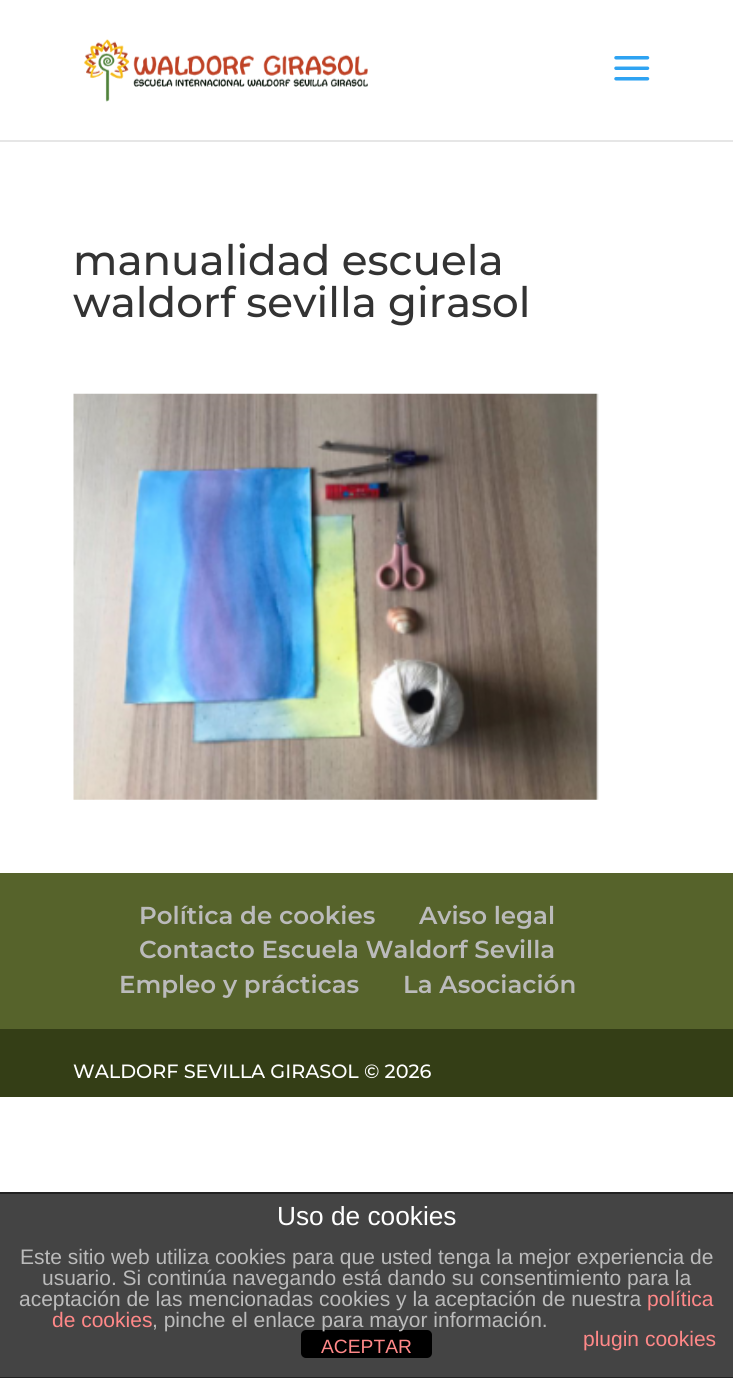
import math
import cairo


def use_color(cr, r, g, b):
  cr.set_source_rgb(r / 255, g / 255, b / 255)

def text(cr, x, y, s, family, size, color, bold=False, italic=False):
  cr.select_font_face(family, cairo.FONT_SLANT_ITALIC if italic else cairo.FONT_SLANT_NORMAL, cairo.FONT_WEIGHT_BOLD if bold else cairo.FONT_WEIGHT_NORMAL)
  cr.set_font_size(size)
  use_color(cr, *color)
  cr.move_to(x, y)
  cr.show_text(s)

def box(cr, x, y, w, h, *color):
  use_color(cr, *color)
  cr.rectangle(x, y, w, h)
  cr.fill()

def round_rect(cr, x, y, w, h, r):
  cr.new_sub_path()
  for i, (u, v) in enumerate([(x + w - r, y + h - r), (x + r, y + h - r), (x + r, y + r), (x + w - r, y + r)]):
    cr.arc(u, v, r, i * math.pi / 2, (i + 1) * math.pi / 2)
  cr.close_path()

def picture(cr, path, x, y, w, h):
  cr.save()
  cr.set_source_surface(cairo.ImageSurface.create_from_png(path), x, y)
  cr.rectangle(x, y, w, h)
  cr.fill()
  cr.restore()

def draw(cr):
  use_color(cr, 255, 255, 255)
  cr.paint()
  box(cr, 0, 140, 733, 2, 230, 230, 230)
  picture(cr, "img_01.png", 84, 39, 284, 63)
  picture(cr, "img_02.png", 614, 56, 36, 25)
  picture(cr, "img_03.png", 73, 393, 526, 407)
  box(cr, 0, 873, 733, 156, 86, 99, 43)
  box(cr, 0, 1029, 733, 68, 52, 62, 22)
  box(cr, 0, 1194, 733, 183, 68, 68, 68)
  box(cr, 0, 1192, 733, 2, 34, 34, 34)
  box(cr, 0, 1377, 733, 1, 34, 34, 34)
  use_color(cr, 0, 0, 0)
  round_rect(cr, 301, 1330, 131, 28, 5)
  cr.fill()
  text(cr, 73, 275, "manualidad escuela", "Montserrat Thin", 42, (51, 51, 51))
  text(cr, 73, 317, "waldorf sevilla girasol", "Montserrat Thin", 42, (51, 51, 51))
  text(cr, 139, 924, "Política de cookies", "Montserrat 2 Thin", 24.5, (187, 187, 187))
  text(cr, 419, 924, "Aviso legal", "Montserrat 2 Thin", 24.5, (187, 187, 187))
  text(cr, 139, 958, "Contacto Escuela Waldorf Sevilla", "Montserrat 2 Thin", 24.5, (187, 187, 187))
  text(cr, 119, 993, "Empleo y prácticas", "Montserrat 2 Thin", 24.5, (187, 187, 187))
  text(cr, 403, 993, "La Asociación", "Montserrat 2 Thin", 24.5, (187, 187, 187))
  text(cr, 73, 1078, "WALDORF SEVILLA GIRASOL © 2026", "Montserrat Thin", 19.25, (255, 255, 255))
  text(cr, 277, 1225, "Uso de cookies", "Liberation Sans", 26.25, (255, 255, 255))
  text(cr, 20, 1264, "Este sitio web utiliza cookies para que usted tenga la mejor experiencia de", "Liberation Sans", 21, (187, 187, 187))
  text(cr, 42, 1285, "usuario. Si continúa navegando está dando su consentimiento para la", "Liberation Sans", 21, (187, 187, 187))
  text(cr, 19, 1306, "aceptación de las mencionadas cookies y la aceptación de nuestra", "Liberation Sans", 21, (187, 187, 187))
  text(cr, 647, 1306, "política", "Liberation Sans", 21, (255, 136, 136))
  text(cr, 52, 1327, "de cookies", "Liberation Sans", 21, (255, 136, 136))
  text(cr, 152, 1327, ", pinche el enlace para mayor información.", "Liberation Sans", 21, (187, 187, 187))
  text(cr, 583, 1346, "plugin cookies", "Liberation Sans", 21, (255, 136, 136))
  text(cr, 321, 1353, "ACEPTAR", "Liberation Sans", 19.25, (255, 136, 136))


surface = cairo.ImageSurface(cairo.FORMAT_RGB24, 733, 1378)
cr = cairo.Context(surface)
options = cairo.FontOptions()
options.set_hint_metrics(cairo.HINT_METRICS_OFF)
options.set_hint_style(cairo.HINT_STYLE_NONE)
cr.set_font_options(options)
cr.set_miter_limit(4)
draw(cr)
surface.write_to_png("out.png")
